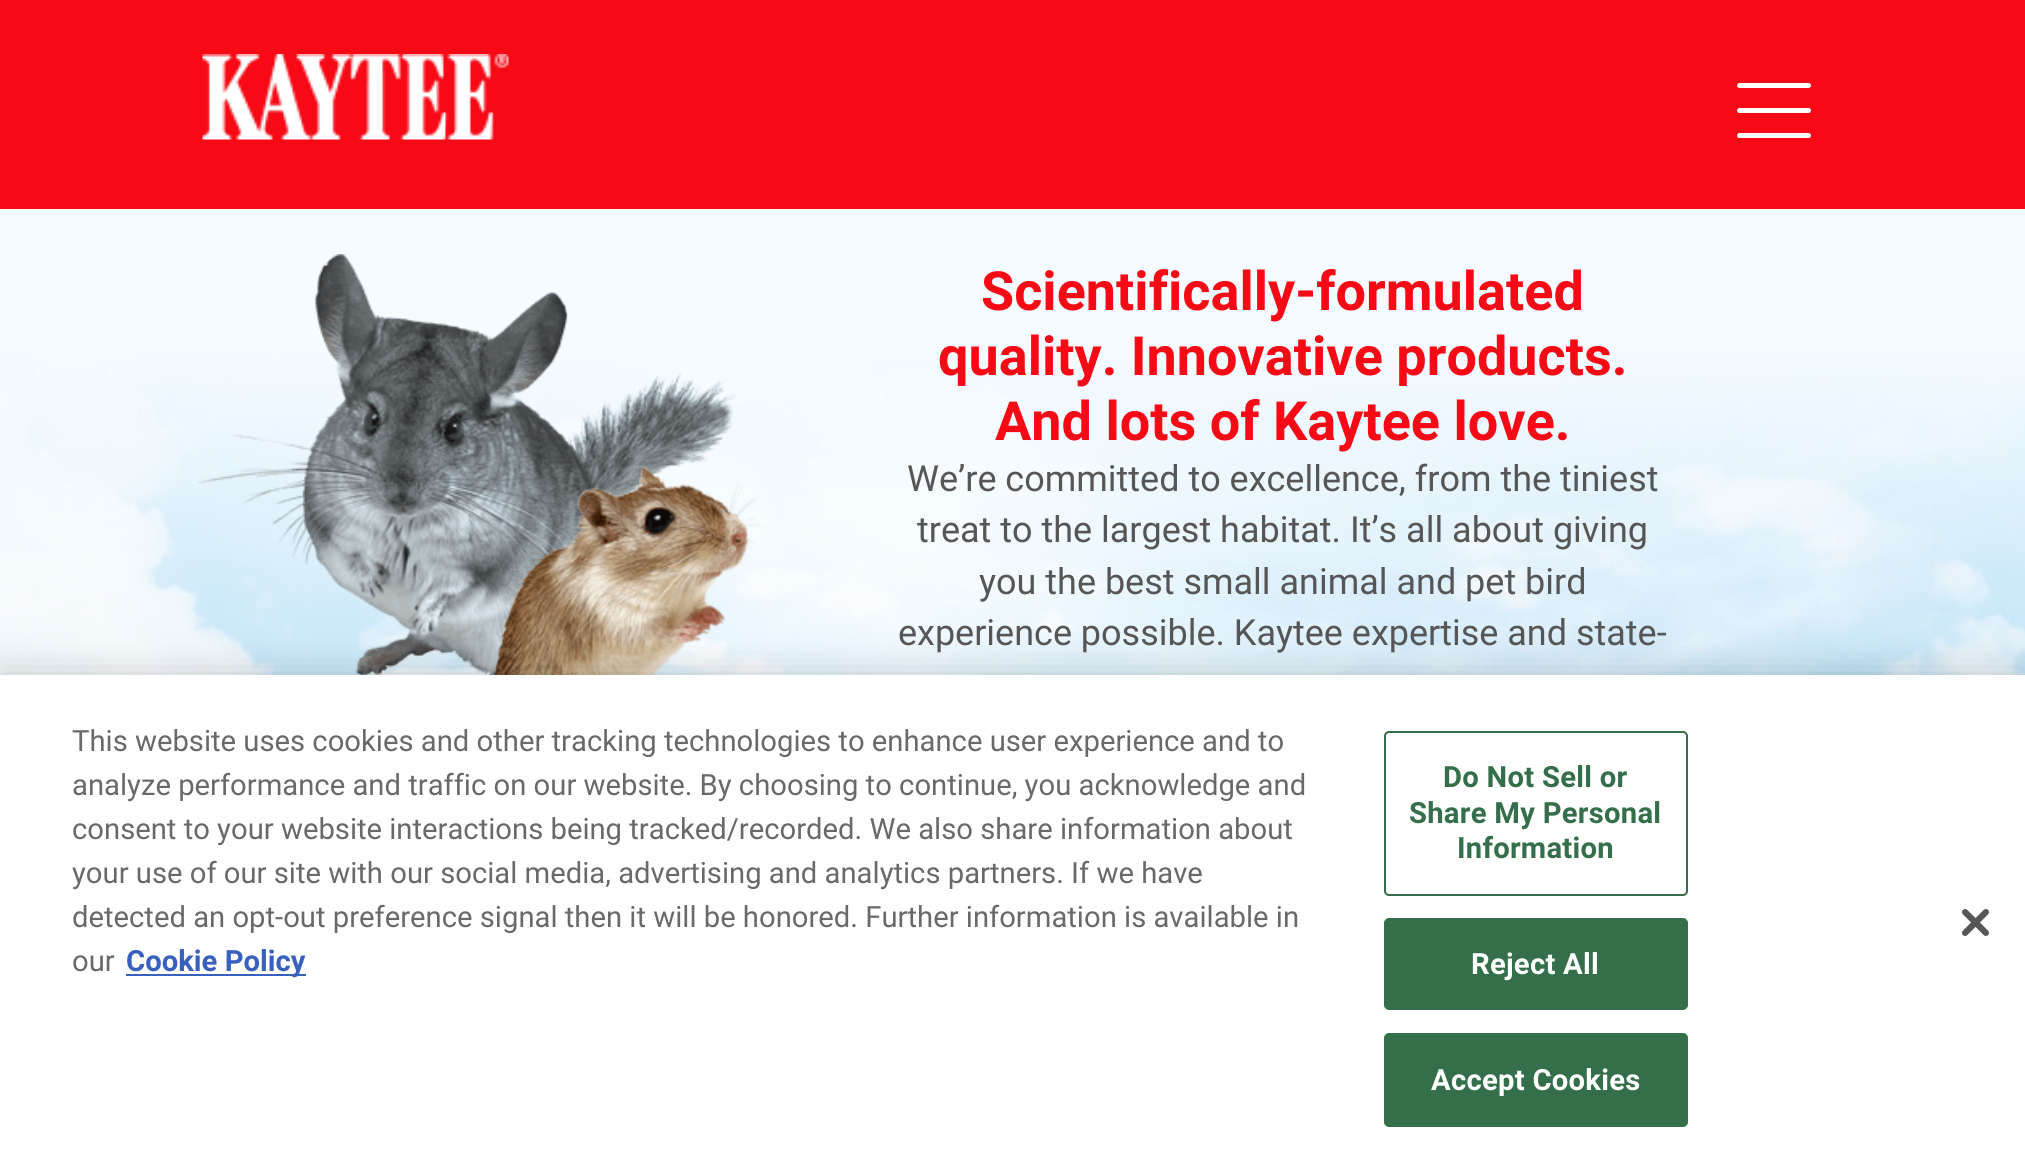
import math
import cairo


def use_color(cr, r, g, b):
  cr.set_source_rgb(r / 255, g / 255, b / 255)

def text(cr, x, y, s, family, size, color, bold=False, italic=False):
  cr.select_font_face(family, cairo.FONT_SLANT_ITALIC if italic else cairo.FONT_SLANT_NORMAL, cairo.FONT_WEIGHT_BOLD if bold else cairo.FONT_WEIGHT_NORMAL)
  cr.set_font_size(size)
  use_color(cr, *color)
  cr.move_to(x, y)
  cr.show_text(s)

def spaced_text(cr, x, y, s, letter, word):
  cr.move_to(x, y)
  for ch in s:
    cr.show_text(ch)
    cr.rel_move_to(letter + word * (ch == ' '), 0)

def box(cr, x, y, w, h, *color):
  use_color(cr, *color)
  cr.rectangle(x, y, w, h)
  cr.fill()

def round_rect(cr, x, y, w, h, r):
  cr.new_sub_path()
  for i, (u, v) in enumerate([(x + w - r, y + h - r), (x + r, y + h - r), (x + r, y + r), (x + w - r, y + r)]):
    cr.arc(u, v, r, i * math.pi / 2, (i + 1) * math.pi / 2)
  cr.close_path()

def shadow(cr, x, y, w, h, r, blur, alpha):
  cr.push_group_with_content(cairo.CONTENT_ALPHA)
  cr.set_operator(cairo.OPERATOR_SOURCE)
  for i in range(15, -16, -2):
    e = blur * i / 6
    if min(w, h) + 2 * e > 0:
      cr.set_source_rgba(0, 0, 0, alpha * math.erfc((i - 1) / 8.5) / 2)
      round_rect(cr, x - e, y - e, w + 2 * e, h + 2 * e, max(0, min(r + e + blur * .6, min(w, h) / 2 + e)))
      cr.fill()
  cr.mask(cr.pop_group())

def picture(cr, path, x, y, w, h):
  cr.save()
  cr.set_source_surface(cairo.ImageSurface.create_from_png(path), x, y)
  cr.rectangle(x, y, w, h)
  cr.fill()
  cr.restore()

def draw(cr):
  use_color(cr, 255, 255, 255)
  cr.paint()
  box(cr, 0, 0, 2025, 209, 247, 9, 21)
  picture(cr, "img_01.png", 202, 54, 307, 86)
  use_color(cr, 255, 255, 255)
  round_rect(cr, 1737, 83, 74, 5, 2.5)
  cr.fill()
  round_rect(cr, 1737, 108, 74, 5, 2.5)
  cr.fill()
  round_rect(cr, 1737, 133, 74, 5, 2.5)
  cr.fill()
  picture(cr, "img_02.png", 0, 209, 2025, 466)
  picture(cr, "img_03.png", 198, 254, 571, 421)
  use_color(cr, 0, 0, 0)
  shadow(cr, 0, 675, 2025, 497, 0, 20, 0.2)
  box(cr, 0, 675, 2025, 497, 255, 255, 255)
  box(cr, 126, 974, 180, 2, 56, 96, 190)
  round_rect(cr, 1385, 732, 302, 163, 4)
  use_color(cr, 52, 110, 74)
  cr.stroke()
  round_rect(cr, 1385, 919, 302, 90, 4)
  cr.fill_preserve()
  cr.stroke()
  round_rect(cr, 1385, 1034, 302, 92, 4)
  cr.fill_preserve()
  cr.stroke()
  picture(cr, "img_04.png", 1962, 909, 27, 27)
  text(cr, 981, 310, "Scientifically-formulated", "Roboto", 54, (247, 9, 21), bold=True)
  text(cr, 938, 375, "quality. Innovative products.", "Roboto", 54, (247, 9, 21), bold=True)
  text(cr, 995, 440, "And lots of Kaytee love.", "Roboto", 54, (247, 9, 21), bold=True)
  text(cr, 907, 491, "We’re committed to excellence, from the tiniest", "Roboto", 36, (86, 86, 86))
  text(cr, 917, 542, "treat to the largest habitat. It’s all about giving", "Roboto", 36, (86, 86, 86))
  text(cr, 979, 594, "you the best small animal and pet bird", "Roboto", 36, (86, 86, 86))
  text(cr, 898, 645, "experience possible. Kaytee expertise and state-", "Roboto", 36, (86, 86, 86))
  text(cr, 72, 751, "This website uses cookies and other tracking technologies to enhance user experience and to", "Roboto", 29.25, (105, 105, 105))
  text(cr, 72, 795, "analyze performance and traffic on our website. By choosing to continue, you acknowledge and", "Roboto", 29.25, (105, 105, 105))
  text(cr, 72, 839, "consent to your website interactions being tracked/recorded. We also share information about", "Roboto", 29.25, (105, 105, 105))
  text(cr, 72, 883, "your use of our site with our social media, advertising and analytics partners. If we have", "Roboto", 29.25, (105, 105, 105))
  text(cr, 72, 927, "detected an opt-out preference signal then it will be honored. Further information is available in", "Roboto", 29.25, (105, 105, 105))
  text(cr, 72, 971, "our", "Roboto", 29.25, (105, 105, 105))
  text(cr, 126, 971, "Cookie Policy", "Roboto", 29.25, (56, 96, 190), bold=True)
  use_color(cr, 52, 110, 74)
  spaced_text(cr, 1443, 787, "Do Not Sell or", 0.25, 0)
  spaced_text(cr, 1409, 823, "Share My Personal", 0.25, 0)
  spaced_text(cr, 1457, 858, "Information", 0.25, 0)
  use_color(cr, 255, 255, 255)
  spaced_text(cr, 1471, 974, "Reject All", 0.25, 0)
  spaced_text(cr, 1431, 1090, "Accept Cookies", 0.25, 0)


surface = cairo.ImageSurface(cairo.FORMAT_RGB24, 2025, 1172)
cr = cairo.Context(surface)
options = cairo.FontOptions()
options.set_hint_metrics(cairo.HINT_METRICS_OFF)
options.set_hint_style(cairo.HINT_STYLE_NONE)
cr.set_font_options(options)
cr.set_miter_limit(4)
draw(cr)
surface.write_to_png("out.png")
